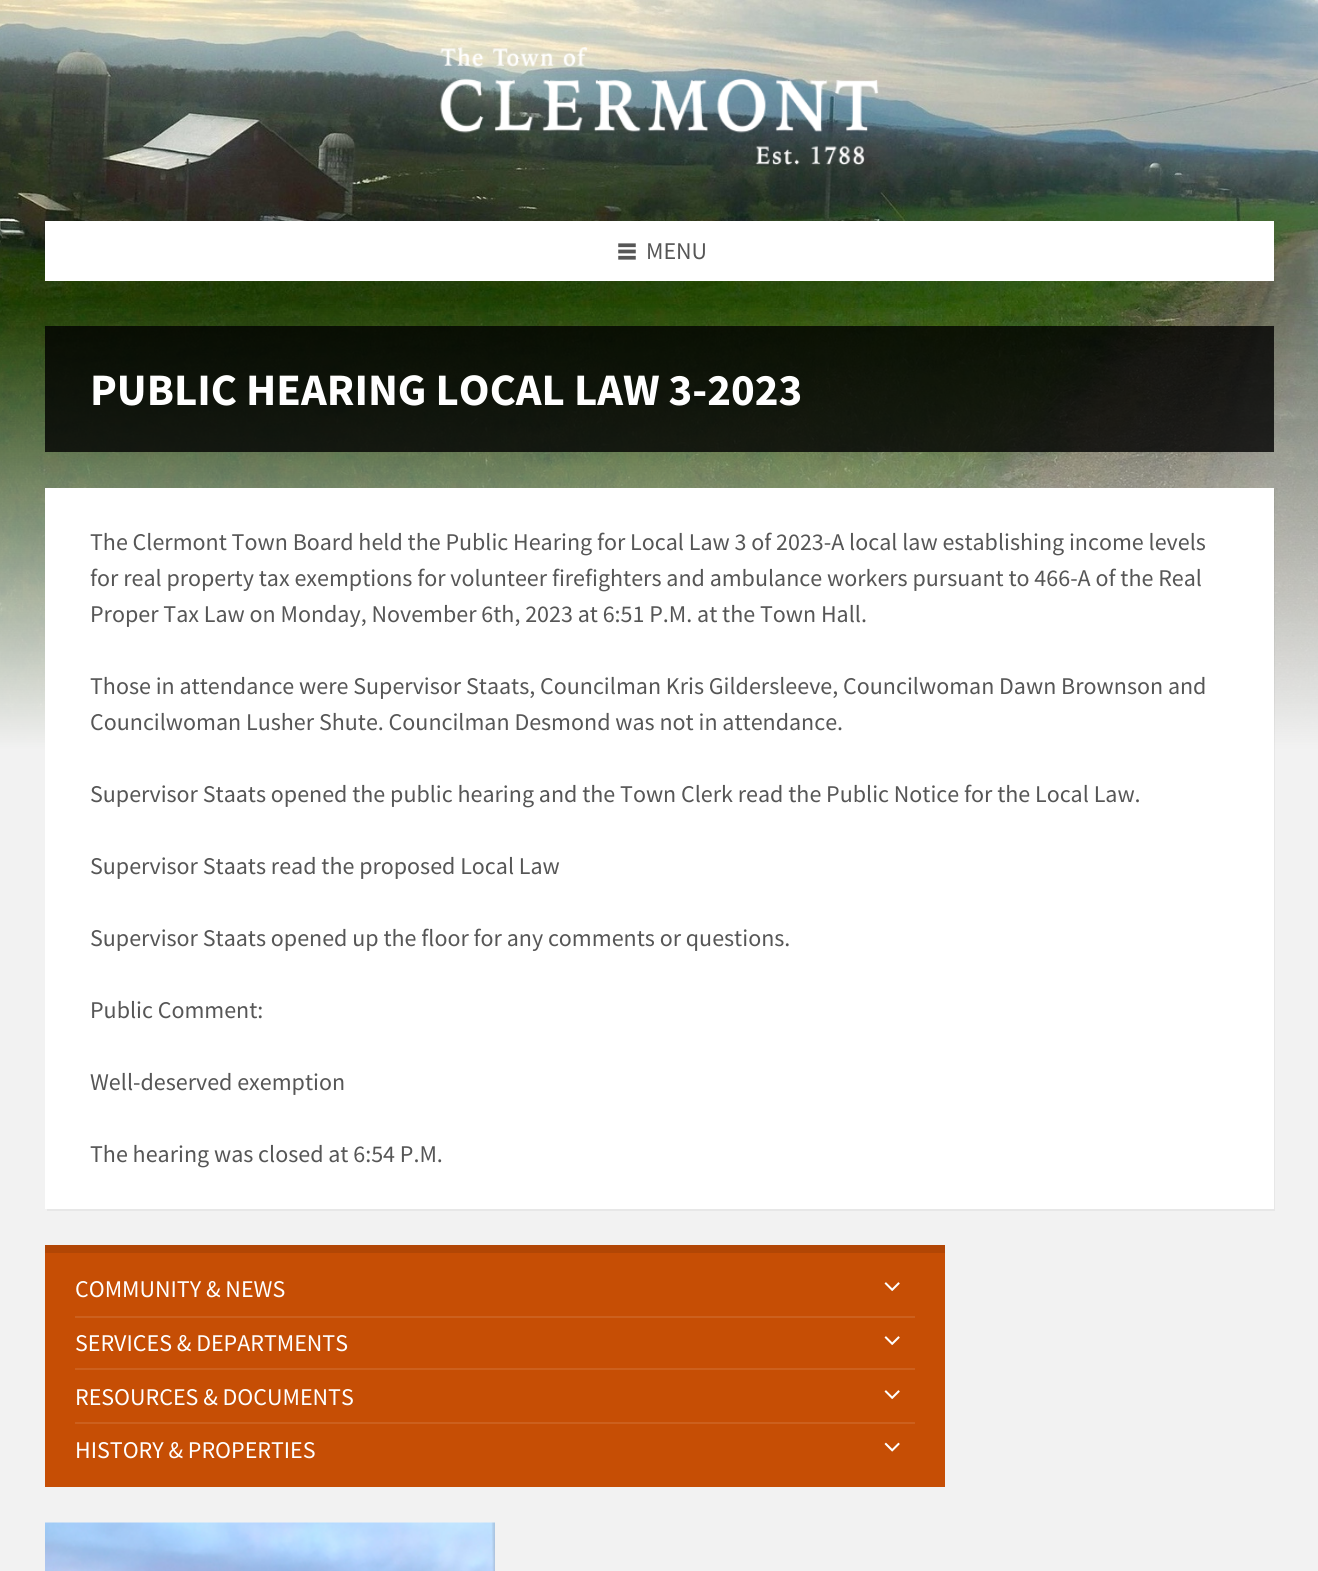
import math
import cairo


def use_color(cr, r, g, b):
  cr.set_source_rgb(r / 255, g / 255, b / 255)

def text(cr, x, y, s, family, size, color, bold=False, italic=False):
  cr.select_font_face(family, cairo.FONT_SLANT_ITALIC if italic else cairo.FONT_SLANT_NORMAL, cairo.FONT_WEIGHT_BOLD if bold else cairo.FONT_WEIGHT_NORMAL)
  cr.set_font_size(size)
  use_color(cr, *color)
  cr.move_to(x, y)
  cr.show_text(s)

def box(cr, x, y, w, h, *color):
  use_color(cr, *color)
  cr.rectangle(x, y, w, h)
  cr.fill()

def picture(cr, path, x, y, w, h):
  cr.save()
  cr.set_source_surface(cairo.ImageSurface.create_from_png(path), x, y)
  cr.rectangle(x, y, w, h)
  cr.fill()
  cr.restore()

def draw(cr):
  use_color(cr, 242, 242, 242)
  cr.paint()
  picture(cr, "img_01.png", 0, 0, 1318, 750)
  picture(cr, "img_02.png", 440, 47, 439, 119)
  box(cr, 45, 221, 1229, 60, 255, 255, 255)
  picture(cr, "img_03.png", 618, 243, 18, 17)
  cr.set_source_rgba(0, 0, 0, 0.8)
  cr.rectangle(45, 326, 1229, 126)
  cr.fill()
  cr.set_source_rgba(0, 0, 0, 0.05)
  cr.new_path()
  cr.move_to(47, 1209)
  cr.line_to(47, 1211)
  cr.line_to(1275, 1211)
  cr.line_to(1275, 489)
  cr.line_to(1274, 489)
  cr.line_to(1274, 1209)
  cr.close_path()
  cr.fill()
  box(cr, 45, 488, 1229, 721, 255, 255, 255)
  box(cr, 45, 1253, 900, 234, 198, 78, 5)
  box(cr, 45, 1245, 900, 8, 178, 70, 5)
  picture(cr, "img_04.png", 884, 1282, 16, 9)
  box(cr, 75, 1316, 840, 2, 204, 96, 30)
  picture(cr, "img_04.png", 884, 1336, 16, 9)
  box(cr, 75, 1368, 840, 2, 204, 96, 30)
  picture(cr, "img_04.png", 884, 1390, 16, 9)
  box(cr, 75, 1422, 840, 2, 204, 96, 30)
  picture(cr, "img_05.png", 884, 1442, 16, 10)
  picture(cr, "img_06.png", 45, 1522, 450, 49)
  text(cr, 646, 259, "MENU", "Source Sans Pro", 24, (86, 86, 86))
  text(cr, 90, 405, "PUBLIC HEARING LOCAL LAW 3-2023", "Source Sans Pro", 45, (255, 255, 255), bold=True)
  text(cr, 90, 550, "The Clermont Town Board held the Public Hearing for Local Law 3 of 2023-A local law establishing income levels", "Source Sans Pro", 24, (86, 86, 86))
  text(cr, 90, 586, "for real property tax exemptions for volunteer firefighters and ambulance workers pursuant to 466-A of the Real", "Source Sans Pro", 24, (86, 86, 86))
  text(cr, 90, 622, "Proper Tax Law on Monday, November 6th, 2023 at 6:51 P.M. at the Town Hall.", "Source Sans Pro", 24, (86, 86, 86))
  text(cr, 90, 694, "Those in attendance were Supervisor Staats, Councilman Kris Gildersleeve, Councilwoman Dawn Brownson and", "Source Sans Pro", 24, (86, 86, 86))
  text(cr, 90, 730, "Councilwoman Lusher Shute. Councilman Desmond was not in attendance.", "Source Sans Pro", 24, (86, 86, 86))
  text(cr, 90, 802, "Supervisor Staats opened the public hearing and the Town Clerk read the Public Notice for the Local Law.", "Source Sans Pro", 24, (86, 86, 86))
  text(cr, 90, 874, "Supervisor Staats read the proposed Local Law", "Source Sans Pro", 24, (86, 86, 86))
  text(cr, 90, 946, "Supervisor Staats opened up the floor for any comments or questions.", "Source Sans Pro", 24, (86, 86, 86))
  text(cr, 90, 1018, "Public Comment:", "Source Sans Pro", 24, (86, 86, 86))
  text(cr, 90, 1090, "Well-deserved exemption", "Source Sans Pro", 24, (86, 86, 86))
  text(cr, 90, 1162, "The hearing was closed at 6:54 P.M.", "Source Sans Pro", 24, (86, 86, 86))
  text(cr, 75, 1297, "COMMUNITY & NEWS", "Source Sans Pro", 24, (255, 255, 255))
  text(cr, 75, 1351, "SERVICES & DEPARTMENTS", "Source Sans Pro", 24, (255, 255, 255))
  text(cr, 75, 1405, "RESOURCES & DOCUMENTS", "Source Sans Pro", 24, (255, 255, 255))
  text(cr, 75, 1458, "HISTORY & PROPERTIES", "Source Sans Pro", 24, (255, 255, 255))


surface = cairo.ImageSurface(cairo.FORMAT_RGB24, 1318, 1571)
cr = cairo.Context(surface)
options = cairo.FontOptions()
options.set_hint_metrics(cairo.HINT_METRICS_OFF)
options.set_hint_style(cairo.HINT_STYLE_NONE)
cr.set_font_options(options)
cr.set_miter_limit(4)
draw(cr)
surface.write_to_png("out.png")
